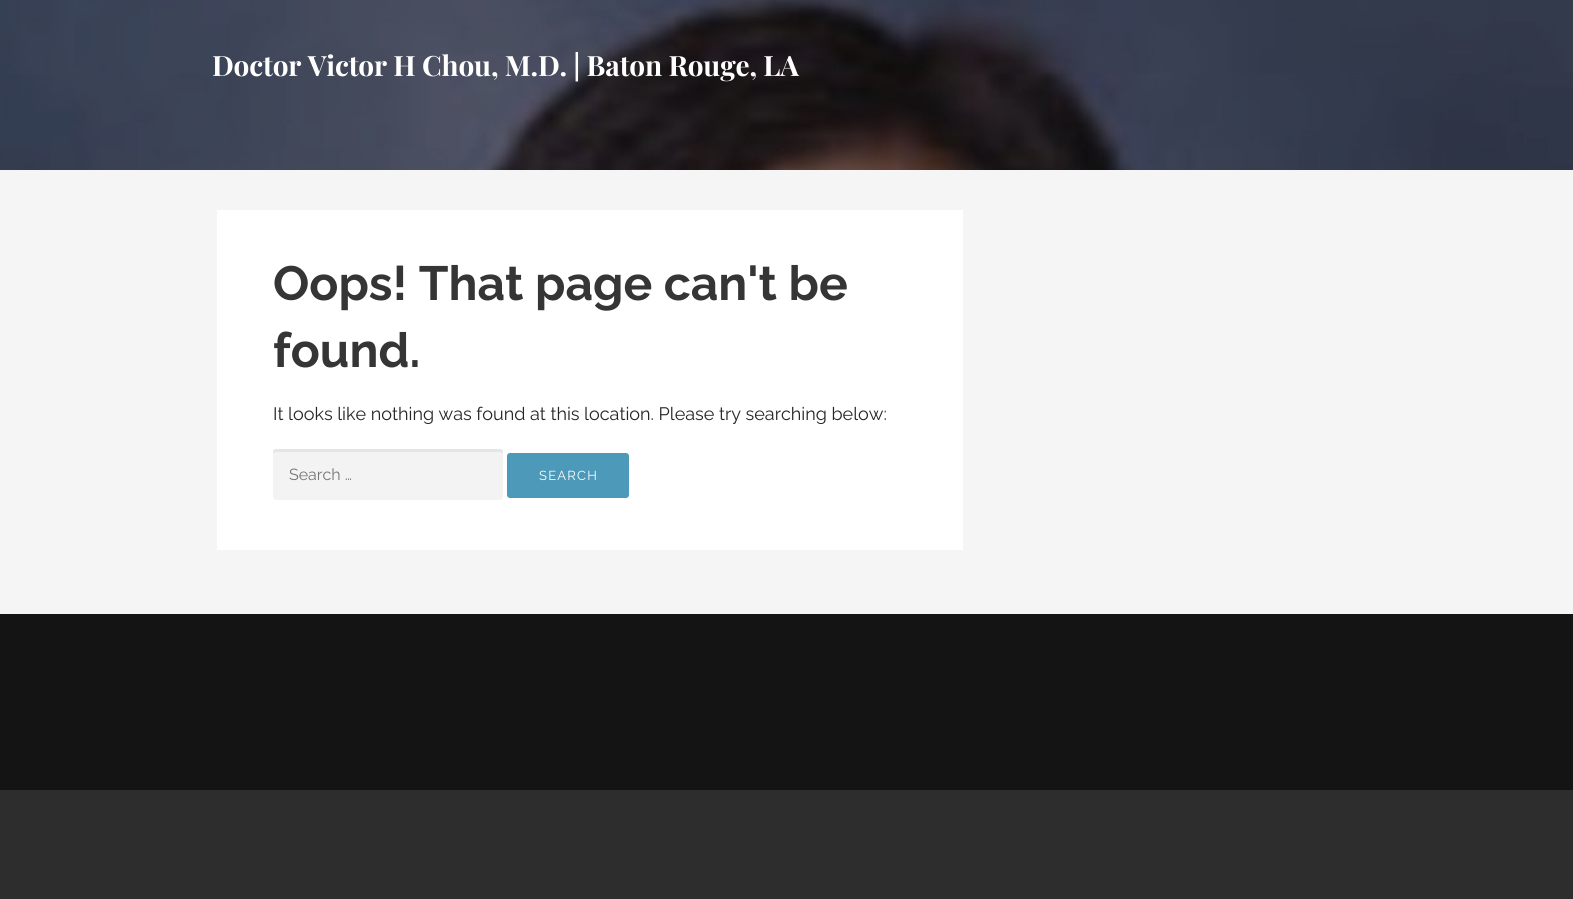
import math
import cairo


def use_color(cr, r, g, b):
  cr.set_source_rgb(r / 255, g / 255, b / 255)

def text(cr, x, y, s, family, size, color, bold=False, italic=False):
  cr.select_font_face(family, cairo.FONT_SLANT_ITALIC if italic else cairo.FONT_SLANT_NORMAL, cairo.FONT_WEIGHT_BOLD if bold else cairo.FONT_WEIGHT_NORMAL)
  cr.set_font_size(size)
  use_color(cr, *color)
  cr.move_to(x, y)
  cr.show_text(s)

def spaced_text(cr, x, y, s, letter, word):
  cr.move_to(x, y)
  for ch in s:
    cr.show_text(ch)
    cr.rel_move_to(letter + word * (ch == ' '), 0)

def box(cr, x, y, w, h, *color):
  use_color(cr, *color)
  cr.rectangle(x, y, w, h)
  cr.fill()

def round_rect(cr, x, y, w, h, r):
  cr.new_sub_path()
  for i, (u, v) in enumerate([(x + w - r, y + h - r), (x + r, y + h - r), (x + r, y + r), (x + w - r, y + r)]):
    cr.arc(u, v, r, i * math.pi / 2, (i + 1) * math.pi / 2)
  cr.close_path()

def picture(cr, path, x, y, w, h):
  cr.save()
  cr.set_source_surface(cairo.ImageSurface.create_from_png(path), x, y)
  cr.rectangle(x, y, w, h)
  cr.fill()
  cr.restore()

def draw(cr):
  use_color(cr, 245, 245, 245)
  cr.paint()
  picture(cr, "img_01.png", 0, 0, 1573, 170)
  box(cr, 217, 210, 746, 340, 255, 255, 255)
  use_color(cr, 243, 243, 243)
  round_rect(cr, 273, 449, 230, 51, 3)
  cr.fill()
  cr.set_source_rgba(0.004, 0.004, 0.004, 0.06)
  cr.new_path()
  cr.move_to(276, 452)
  cr.line_to(500, 452)
  cr.curve_to(502, 452, 503, 453, 503, 455)
  cr.line_to(503, 452)
  cr.curve_to(503, 450, 502, 449, 500, 449)
  cr.line_to(276, 449)
  cr.curve_to(274, 449, 273, 450, 273, 452)
  cr.line_to(273, 455)
  cr.curve_to(273, 453, 274, 452, 276, 452)
  cr.close_path()
  cr.fill()
  use_color(cr, 76, 153, 186)
  round_rect(cr, 507, 453, 122, 45, 3)
  cr.fill()
  box(cr, 0, 614, 1573, 176, 20, 20, 20)
  box(cr, 0, 790, 1573, 109, 45, 45, 45)
  cr.select_font_face("Playfair Display", cairo.FONT_SLANT_NORMAL, cairo.FONT_WEIGHT_BOLD)
  cr.set_font_size(28)
  use_color(cr, 255, 255, 255)
  spaced_text(cr, 212, 76, "Doctor Victor H Chou, M.D. | Baton Rouge, LA", -0.15, 0)
  text(cr, 273, 300, "Oops! That page can't be", "Raleway", 48, (53, 53, 53), bold=True)
  text(cr, 273, 367, "found.", "Raleway", 48, (53, 53, 53), bold=True)
  text(cr, 273, 420, "It looks like nothing was found at this location. Please try searching below:", "Raleway", 18, (37, 37, 37))
  text(cr, 289, 480, "Search …", "Raleway", 16, (117, 117, 117))
  cr.set_font_size(13)
  use_color(cr, 255, 255, 255)
  spaced_text(cr, 539, 480, "SEARCH", 1.25, 0)


surface = cairo.ImageSurface(cairo.FORMAT_RGB24, 1573, 899)
cr = cairo.Context(surface)
options = cairo.FontOptions()
options.set_hint_metrics(cairo.HINT_METRICS_OFF)
options.set_hint_style(cairo.HINT_STYLE_NONE)
cr.set_font_options(options)
cr.set_miter_limit(4)
draw(cr)
surface.write_to_png("out.png")
